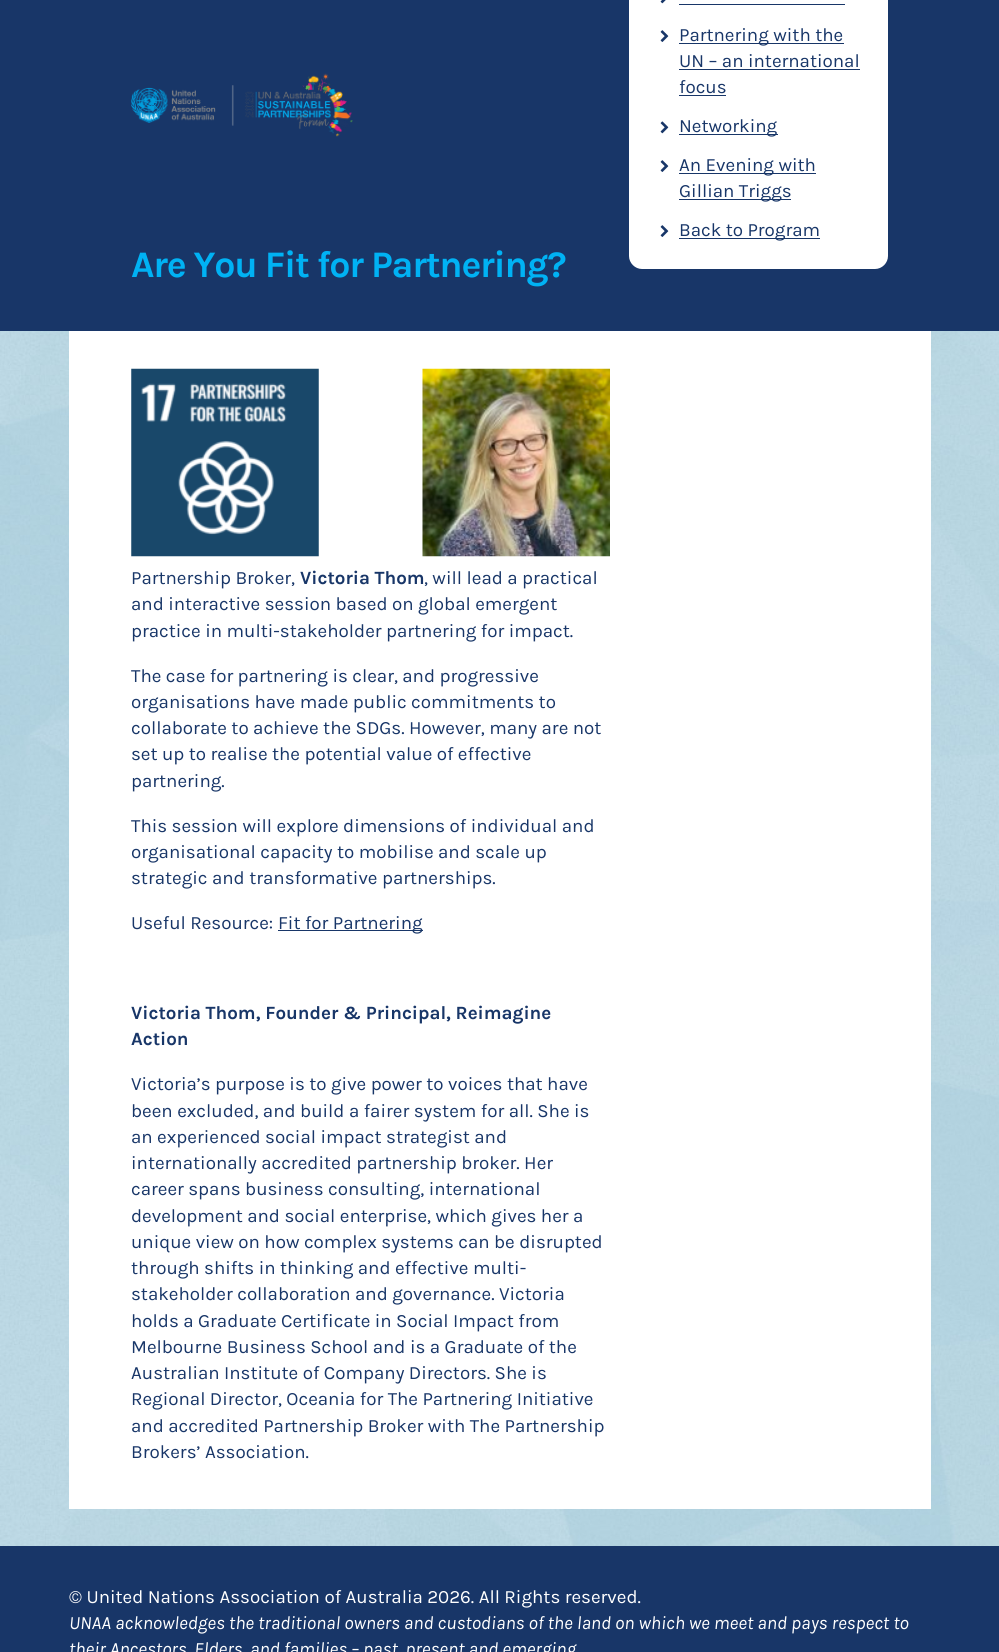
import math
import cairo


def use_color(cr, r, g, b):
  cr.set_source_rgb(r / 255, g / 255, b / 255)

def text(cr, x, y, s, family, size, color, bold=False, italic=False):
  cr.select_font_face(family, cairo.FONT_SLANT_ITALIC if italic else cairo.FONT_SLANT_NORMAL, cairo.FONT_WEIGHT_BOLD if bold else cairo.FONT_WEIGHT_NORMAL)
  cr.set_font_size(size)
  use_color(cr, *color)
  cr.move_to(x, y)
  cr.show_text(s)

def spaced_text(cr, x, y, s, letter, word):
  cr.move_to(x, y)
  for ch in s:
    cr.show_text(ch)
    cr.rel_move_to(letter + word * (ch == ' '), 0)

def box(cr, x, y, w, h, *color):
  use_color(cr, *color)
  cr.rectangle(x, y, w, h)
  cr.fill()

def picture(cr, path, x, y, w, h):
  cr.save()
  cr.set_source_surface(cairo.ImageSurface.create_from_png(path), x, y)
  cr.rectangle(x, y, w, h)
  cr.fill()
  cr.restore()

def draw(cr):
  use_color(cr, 255, 255, 255)
  cr.paint()
  picture(cr, "img_01.png", 0, 331, 999, 1215)
  box(cr, 69, 331, 862, 1178, 255, 255, 255)
  box(cr, 0, 0, 999, 331, 24, 54, 104)
  use_color(cr, 255, 255, 255)
  cr.new_path()
  cr.move_to(629, -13)
  cr.line_to(888, -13)
  cr.line_to(888, 256)
  cr.curve_to(888, 263, 882, 269, 875, 269)
  cr.line_to(642, 269)
  cr.curve_to(635, 269, 629, 263, 629, 256)
  cr.close_path()
  cr.fill()
  picture(cr, "img_02.png", 660, 0, 6, 4)
  box(cr, 679, 4, 166, 1, 24, 54, 104)
  picture(cr, "img_03.png", 660, 30, 9, 12)
  box(cr, 679, 43, 165, 1, 24, 54, 104)
  box(cr, 679, 69, 181, 1, 24, 54, 104)
  box(cr, 679, 95, 47, 1, 24, 54, 104)
  picture(cr, "img_04.png", 660, 121, 9, 13)
  box(cr, 679, 134, 99, 1, 24, 54, 104)
  picture(cr, "img_03.png", 660, 160, 9, 12)
  box(cr, 679, 173, 137, 1, 24, 54, 104)
  box(cr, 679, 199, 112, 1, 24, 54, 104)
  picture(cr, "img_03.png", 660, 225, 9, 12)
  box(cr, 679, 238, 141, 1, 24, 54, 104)
  picture(cr, "img_05.png", 131, 73, 222, 64)
  picture(cr, "img_06.png", 131, 368, 188, 189)
  picture(cr, "img_07.png", 422, 368, 188, 189)
  box(cr, 278, 930, 145, 1, 24, 54, 104)
  box(cr, 0, 1546, 999, 106, 24, 54, 104)
  text(cr, 679, 41, "Partnering with the", "Karla", 18.75, (24, 54, 104))
  text(cr, 679, 67, "UN – an international", "Karla", 18.75, (24, 54, 104))
  text(cr, 679, 93, "focus", "Karla", 18.75, (24, 54, 104))
  text(cr, 679, 132, "Networking", "Karla", 18.75, (24, 54, 104))
  text(cr, 679, 171, "An Evening with", "Karla", 18.75, (24, 54, 104))
  text(cr, 679, 197, "Gillian Triggs", "Karla", 18.75, (24, 54, 104))
  text(cr, 679, 236, "Back to Program", "Karla", 18.75, (24, 54, 104))
  cr.select_font_face("Karla", cairo.FONT_SLANT_NORMAL, cairo.FONT_WEIGHT_BOLD)
  cr.set_font_size(37.5)
  use_color(cr, 0, 178, 244)
  spaced_text(cr, 131, 277, "Are You Fit for Partnering?", -1.25, 0)
  text(cr, 131, 584, "Partnership Broker,", "Karla", 18.75, (24, 54, 104))
  text(cr, 300, 584, "Victoria Thom", "Karla", 18.75, (24, 54, 104), bold=True)
  text(cr, 424, 584, ", will lead a practical", "Karla", 18.75, (24, 54, 104))
  text(cr, 131, 610, "and interactive session based on global emergent", "Karla", 18.75, (24, 54, 104))
  text(cr, 131, 637, "practice in multi-stakeholder partnering for impact.", "Karla", 18.75, (24, 54, 104))
  text(cr, 131, 682, "The case for partnering is clear, and progressive", "Karla", 18.75, (24, 54, 104))
  text(cr, 131, 708, "organisations have made public commitments to", "Karla", 18.75, (24, 54, 104))
  text(cr, 131, 734, "collaborate to achieve the SDGs. However, many are not", "Karla", 18.75, (24, 54, 104))
  text(cr, 131, 760, "set up to realise the potential value of effective", "Karla", 18.75, (24, 54, 104))
  text(cr, 131, 787, "partnering.", "Karla", 18.75, (24, 54, 104))
  text(cr, 131, 832, "This session will explore dimensions of individual and", "Karla", 18.75, (24, 54, 104))
  text(cr, 131, 858, "organisational capacity to mobilise and scale up", "Karla", 18.75, (24, 54, 104))
  text(cr, 131, 884, "strategic and transformative partnerships.", "Karla", 18.75, (24, 54, 104))
  text(cr, 131, 929, "Useful Resource:", "Karla", 18.75, (24, 54, 104))
  text(cr, 278, 929, "Fit for Partnering", "Karla", 18.75, (24, 54, 104))
  text(cr, 131, 1019, "Victoria Thom, Founder & Principal, Reimagine", "Karla", 18.75, (24, 54, 104), bold=True)
  text(cr, 131, 1045, "Action", "Karla", 18.75, (24, 54, 104), bold=True)
  text(cr, 131, 1090, "Victoria’s purpose is to give power to voices that have", "Karla", 18.75, (24, 54, 104))
  text(cr, 131, 1117, "been excluded, and build a fairer system for all. She is", "Karla", 18.75, (24, 54, 104))
  text(cr, 131, 1143, "an experienced social impact strategist and", "Karla", 18.75, (24, 54, 104))
  text(cr, 131, 1169, "internationally accredited partnership broker. Her", "Karla", 18.75, (24, 54, 104))
  text(cr, 131, 1195, "career spans business consulting, international", "Karla", 18.75, (24, 54, 104))
  text(cr, 131, 1222, "development and social enterprise, which gives her a", "Karla", 18.75, (24, 54, 104))
  text(cr, 131, 1248, "unique view on how complex systems can be disrupted", "Karla", 18.75, (24, 54, 104))
  text(cr, 131, 1274, "through shifts in thinking and effective multi-", "Karla", 18.75, (24, 54, 104))
  text(cr, 131, 1300, "stakeholder collaboration and governance. Victoria", "Karla", 18.75, (24, 54, 104))
  text(cr, 131, 1327, "holds a Graduate Certificate in Social Impact from", "Karla", 18.75, (24, 54, 104))
  text(cr, 131, 1353, "Melbourne Business School and is a Graduate of the", "Karla", 18.75, (24, 54, 104))
  text(cr, 131, 1379, "Australian Institute of Company Directors. She is", "Karla", 18.75, (24, 54, 104))
  text(cr, 131, 1405, "Regional Director, Oceania for The Partnering Initiative", "Karla", 18.75, (24, 54, 104))
  text(cr, 131, 1432, "and accredited Partnership Broker with The Partnership", "Karla", 18.75, (24, 54, 104))
  text(cr, 131, 1458, "Brokers’ Association.", "Karla", 18.75, (24, 54, 104))
  text(cr, 69, 1603, "© United Nations Association of Australia 2026. All Rights reserved.", "Karla", 18.75, (255, 255, 255))
  text(cr, 69, 1629, "UNAA acknowledges the traditional owners and custodians of the land on which we meet and pays respect to", "Karla", 18.75, (255, 255, 255), italic=True)
  text(cr, 69, 1655, "their Ancestors, Elders, and families – past, present and emerging.", "Karla", 18.75, (255, 255, 255), italic=True)


surface = cairo.ImageSurface(cairo.FORMAT_RGB24, 999, 1652)
cr = cairo.Context(surface)
options = cairo.FontOptions()
options.set_hint_metrics(cairo.HINT_METRICS_OFF)
options.set_hint_style(cairo.HINT_STYLE_NONE)
cr.set_font_options(options)
cr.set_miter_limit(4)
draw(cr)
surface.write_to_png("out.png")
